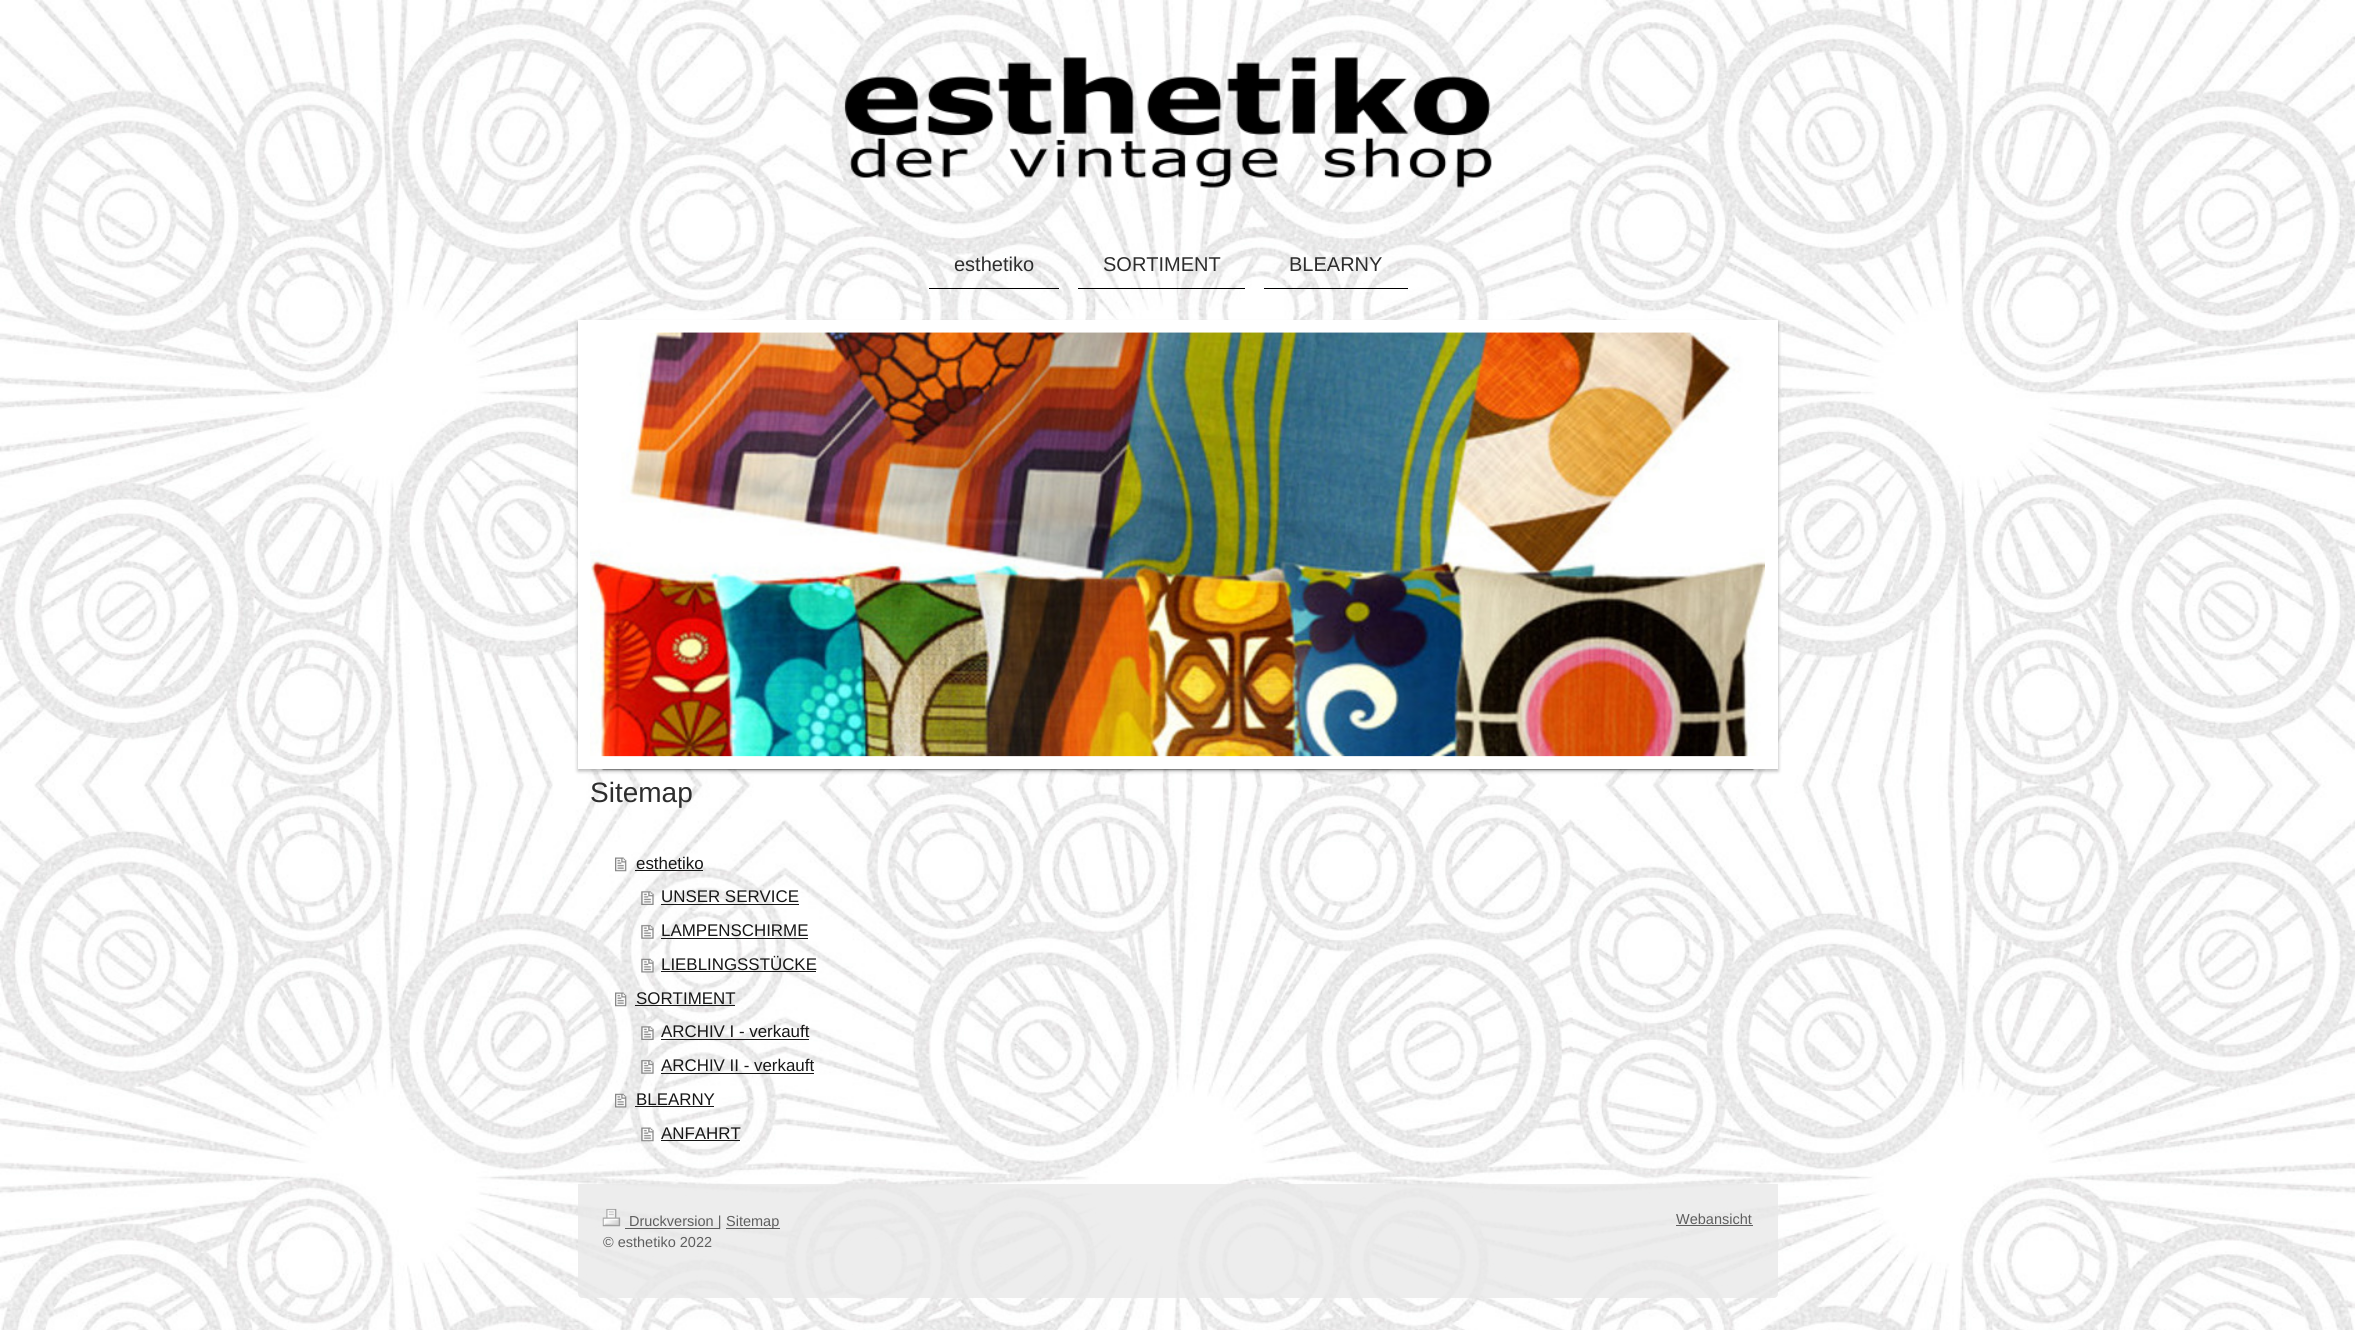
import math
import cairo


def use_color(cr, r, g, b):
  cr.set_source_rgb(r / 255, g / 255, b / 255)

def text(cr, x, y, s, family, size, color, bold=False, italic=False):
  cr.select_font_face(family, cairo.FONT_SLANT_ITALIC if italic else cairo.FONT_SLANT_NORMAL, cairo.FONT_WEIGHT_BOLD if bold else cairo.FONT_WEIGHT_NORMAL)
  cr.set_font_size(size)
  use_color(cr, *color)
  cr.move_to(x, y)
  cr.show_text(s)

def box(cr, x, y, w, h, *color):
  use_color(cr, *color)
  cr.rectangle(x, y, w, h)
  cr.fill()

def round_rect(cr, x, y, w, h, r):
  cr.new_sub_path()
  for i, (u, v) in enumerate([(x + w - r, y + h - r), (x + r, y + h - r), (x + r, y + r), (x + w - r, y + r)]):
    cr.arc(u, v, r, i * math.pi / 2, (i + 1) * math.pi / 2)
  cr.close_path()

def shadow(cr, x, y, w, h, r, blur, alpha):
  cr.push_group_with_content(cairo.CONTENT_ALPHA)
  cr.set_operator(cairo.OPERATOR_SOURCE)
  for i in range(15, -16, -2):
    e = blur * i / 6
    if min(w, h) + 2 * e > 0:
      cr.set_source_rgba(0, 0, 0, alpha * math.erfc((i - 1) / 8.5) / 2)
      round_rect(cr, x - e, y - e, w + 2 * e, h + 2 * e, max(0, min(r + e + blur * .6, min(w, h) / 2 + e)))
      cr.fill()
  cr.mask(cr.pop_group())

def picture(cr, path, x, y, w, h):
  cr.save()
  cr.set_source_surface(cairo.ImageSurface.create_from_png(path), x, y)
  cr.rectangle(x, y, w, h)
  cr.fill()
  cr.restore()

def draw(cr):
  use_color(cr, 255, 255, 255)
  cr.paint()
  picture(cr, "img_01.png", 0, 0, 2355, 1330)
  picture(cr, "img_02.png", 844, 57, 648, 131)
  box(cr, 929, 288, 130, 1, 0, 0, 0)
  box(cr, 1078, 288, 167, 1, 0, 0, 0)
  box(cr, 1264, 288, 144, 1, 0, 0, 0)
  use_color(cr, 0, 0, 0)
  shadow(cr, 578, 323, 1200, 448, 0, 2, 0.3)
  shadow(cr, 603, 370, 1150, 399, 0, 1, 1)
  cr.rectangle(584.5, 326.5, 1187, 436)
  use_color(cr, 255, 255, 255)
  cr.set_line_width(13)
  cr.stroke()
  picture(cr, "img_03.png", 590, 332, 1175, 425)
  picture(cr, "img_04.png", 590, 332, 1175, 425)
  picture(cr, "img_05.png", 615, 857, 12, 15)
  box(cr, 635, 870, 68, 1, 23, 23, 23)
  picture(cr, "img_06.png", 641, 891, 13, 14)
  box(cr, 661, 904, 138, 1, 23, 23, 23)
  picture(cr, "img_07.png", 641, 924, 13, 15)
  box(cr, 661, 938, 147, 1, 23, 23, 23)
  picture(cr, "img_08.png", 641, 958, 13, 15)
  box(cr, 661, 971, 155, 1, 23, 23, 23)
  picture(cr, "img_09.png", 615, 992, 12, 15)
  box(cr, 635, 1005, 100, 1, 23, 23, 23)
  picture(cr, "img_10.png", 641, 1026, 13, 14)
  box(cr, 661, 1039, 148, 1, 23, 23, 23)
  picture(cr, "img_11.png", 641, 1059, 13, 15)
  box(cr, 661, 1073, 153, 1, 23, 23, 23)
  picture(cr, "img_12.png", 615, 1093, 12, 15)
  box(cr, 635, 1106, 79, 1, 23, 23, 23)
  picture(cr, "img_13.png", 641, 1127, 13, 15)
  box(cr, 661, 1140, 79, 1, 23, 23, 23)
  cr.set_source_rgba(0.91, 0.91, 0.91, 0.8)
  cr.new_path()
  cr.move_to(578, 1184)
  cr.line_to(1778, 1184)
  cr.line_to(1778, 1294)
  cr.curve_to(1778, 1296, 1776, 1298, 1774, 1298)
  cr.line_to(582, 1298)
  cr.curve_to(580, 1298, 578, 1296, 578, 1294)
  cr.close_path()
  cr.fill()
  picture(cr, "img_14.png", 602, 1208, 19, 19)
  box(cr, 625, 1228, 94, 1, 94, 94, 94)
  box(cr, 726, 1228, 54, 1, 94, 94, 94)
  box(cr, 1676, 1225, 77, 1, 94, 94, 94)
  text(cr, 954, 271, "esthetiko", "Liberation Sans", 20, (45, 45, 45))
  text(cr, 1103, 271, "SORTIMENT", "Liberation Sans", 20, (45, 45, 45))
  text(cr, 1289, 271, "BLEARNY", "Liberation Sans", 20, (45, 45, 45))
  text(cr, 590, 802, "Sitemap", "Liberation Sans", 28, (45, 45, 45))
  text(cr, 636, 869, "esthetiko", "Liberation Sans", 16.9, (23, 23, 23))
  text(cr, 661, 902, "UNSER SERVICE", "Liberation Sans", 16.9, (23, 23, 23))
  text(cr, 661, 936, "LAMPENSCHIRME", "Liberation Sans", 16.9, (23, 23, 23))
  text(cr, 661, 970, "LIEBLINGSSTÜCKE", "Liberation Sans", 16.9, (23, 23, 23))
  text(cr, 636, 1004, "SORTIMENT", "Liberation Sans", 16.9, (23, 23, 23))
  text(cr, 661, 1037, "ARCHIV I - verkauft", "Liberation Sans", 16.9, (23, 23, 23))
  text(cr, 661, 1071, "ARCHIV II - verkauft", "Liberation Sans", 16.9, (23, 23, 23))
  text(cr, 636, 1105, "BLEARNY", "Liberation Sans", 16.9, (23, 23, 23))
  text(cr, 661, 1139, "ANFAHRT", "Liberation Sans", 16.9, (23, 23, 23))
  text(cr, 629, 1226, "Druckversion |", "Liberation Sans", 14.5, (94, 94, 94))
  text(cr, 726, 1226, "Sitemap", "Liberation Sans", 14.5, (94, 94, 94))
  cr.save()
  cr.rectangle(603, 1209, 1150, 64)
  cr.clip()
  text(cr, 603, 1247, "© esthetiko 2022", "Liberation Sans", 14.5, (94, 94, 94))
  cr.restore()
  text(cr, 1676, 1224, "Webansicht", "Liberation Sans", 14.5, (94, 94, 94))


surface = cairo.ImageSurface(cairo.FORMAT_RGB24, 2355, 1330)
cr = cairo.Context(surface)
options = cairo.FontOptions()
options.set_hint_metrics(cairo.HINT_METRICS_OFF)
options.set_hint_style(cairo.HINT_STYLE_NONE)
cr.set_font_options(options)
cr.set_miter_limit(4)
draw(cr)
surface.write_to_png("out.png")
